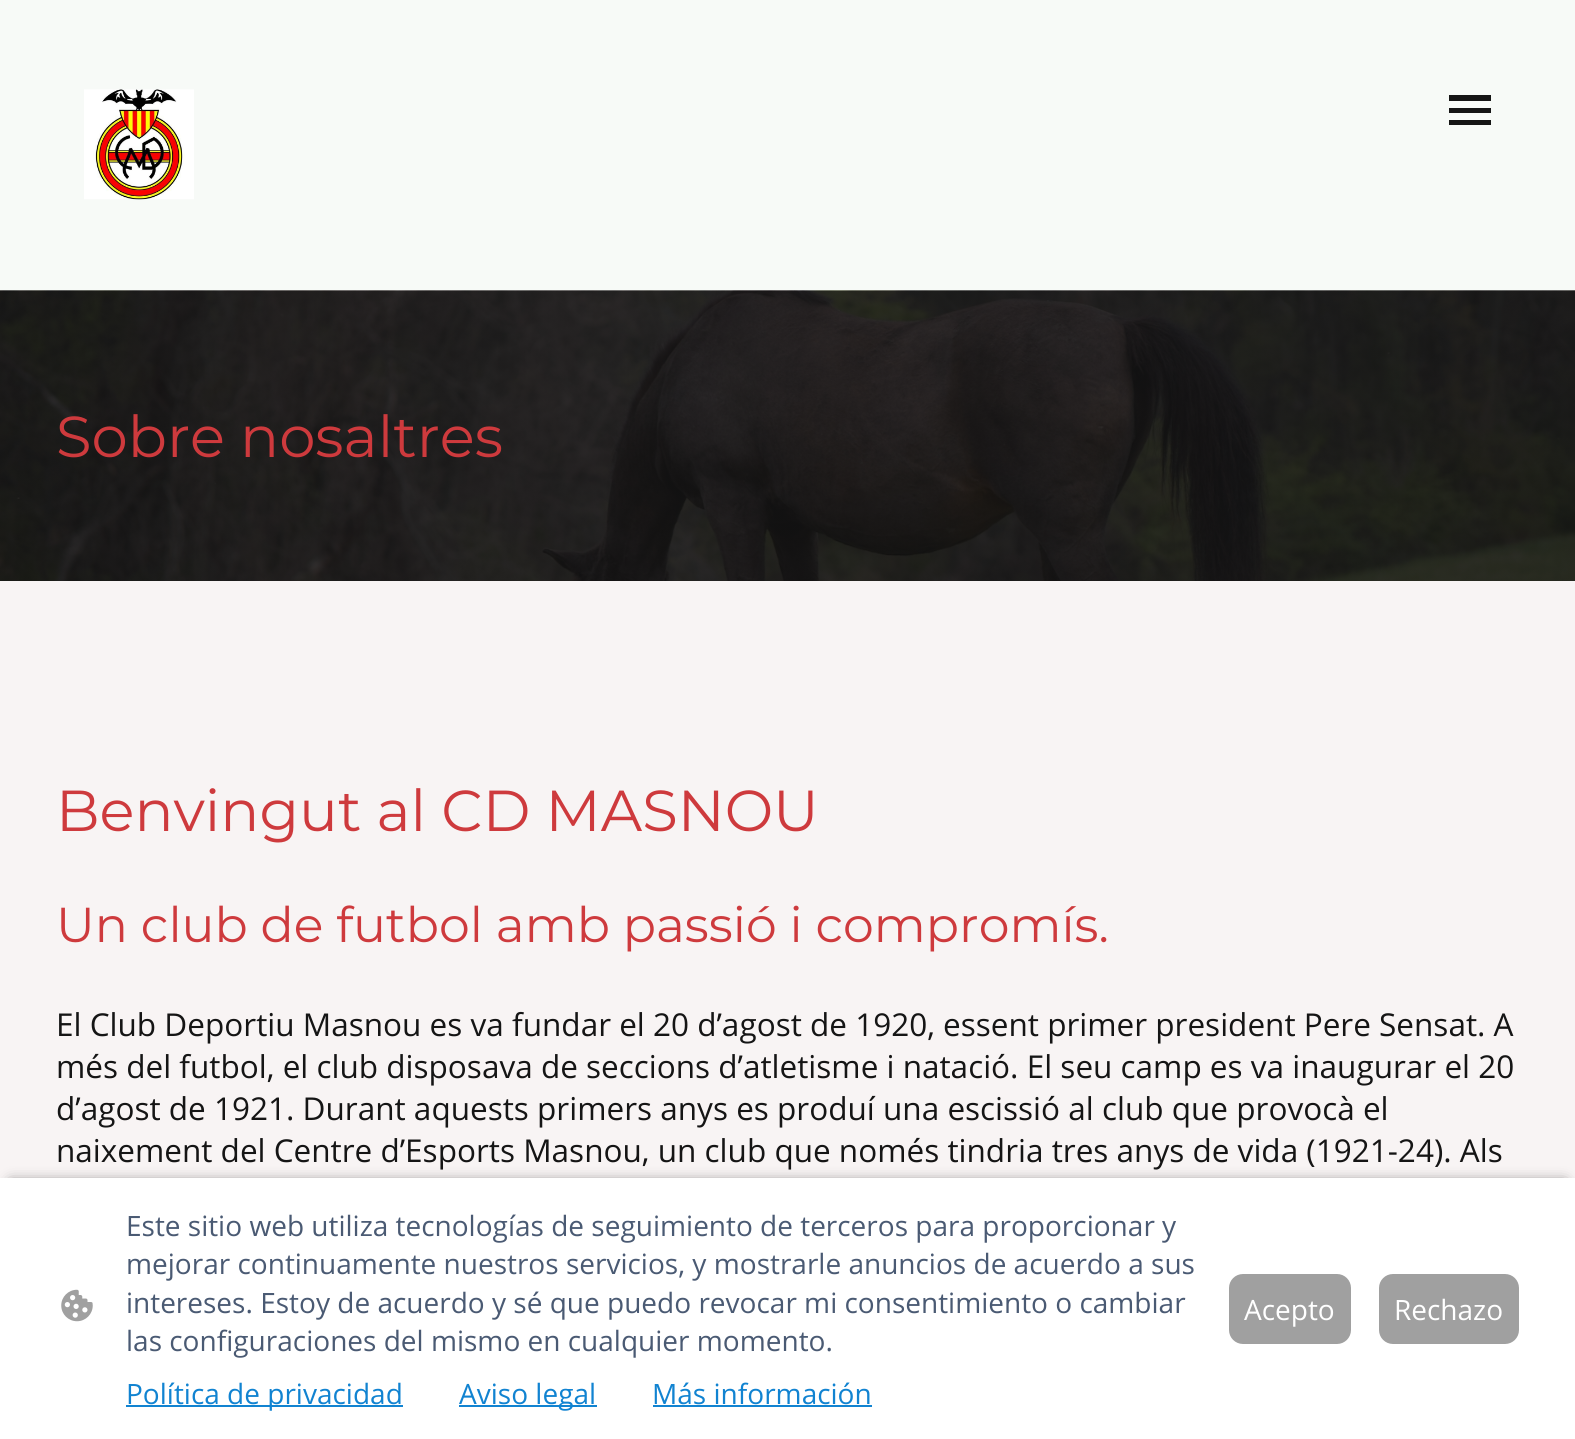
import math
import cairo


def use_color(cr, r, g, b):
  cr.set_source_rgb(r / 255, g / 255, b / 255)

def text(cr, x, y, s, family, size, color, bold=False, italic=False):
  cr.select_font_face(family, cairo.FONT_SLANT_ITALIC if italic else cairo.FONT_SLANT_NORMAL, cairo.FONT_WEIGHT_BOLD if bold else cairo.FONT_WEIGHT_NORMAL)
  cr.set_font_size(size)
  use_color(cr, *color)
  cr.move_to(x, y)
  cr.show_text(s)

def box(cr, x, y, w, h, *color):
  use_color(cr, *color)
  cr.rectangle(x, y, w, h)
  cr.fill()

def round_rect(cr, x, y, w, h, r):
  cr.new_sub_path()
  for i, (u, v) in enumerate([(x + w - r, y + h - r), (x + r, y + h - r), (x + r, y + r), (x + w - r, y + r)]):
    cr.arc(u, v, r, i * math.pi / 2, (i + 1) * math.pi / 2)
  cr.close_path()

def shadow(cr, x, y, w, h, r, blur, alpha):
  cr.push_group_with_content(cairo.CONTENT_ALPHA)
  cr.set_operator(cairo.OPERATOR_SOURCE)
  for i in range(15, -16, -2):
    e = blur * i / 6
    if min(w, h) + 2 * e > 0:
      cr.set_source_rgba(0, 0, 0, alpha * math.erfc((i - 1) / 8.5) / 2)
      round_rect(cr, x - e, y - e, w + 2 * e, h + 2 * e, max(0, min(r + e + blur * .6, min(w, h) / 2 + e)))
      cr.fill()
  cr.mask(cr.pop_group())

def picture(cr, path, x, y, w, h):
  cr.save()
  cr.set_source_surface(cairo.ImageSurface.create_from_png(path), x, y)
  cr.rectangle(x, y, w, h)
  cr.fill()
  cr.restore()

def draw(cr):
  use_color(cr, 247, 250, 247)
  cr.paint()
  picture(cr, "img_01.png", 84, 89, 110, 111)
  box(cr, 1449, 95, 42, 6, 21, 21, 21)
  box(cr, 1449, 108, 42, 5, 21, 21, 21)
  box(cr, 1449, 120, 42, 5, 21, 21, 21)
  picture(cr, "img_02.png", 0, 290, 1575, 291)
  box(cr, 0, 581, 1575, 597, 248, 244, 244)
  use_color(cr, 0, 0, 0)
  shadow(cr, 11, 1183, 1554, 242, 0, 7, 0.63)
  box(cr, 0, 1178, 1575, 261, 255, 255, 255)
  picture(cr, "img_03.png", 61, 1289, 32, 33)
  box(cr, 126, 1405, 277, 2, 17, 131, 209)
  box(cr, 459, 1405, 138, 2, 17, 131, 209)
  box(cr, 653, 1405, 219, 2, 17, 131, 209)
  use_color(cr, 160, 160, 160)
  round_rect(cr, 1230, 1275, 120, 68, 13)
  cr.fill_preserve()
  cr.stroke()
  round_rect(cr, 1380, 1275, 138, 68, 13)
  cr.fill_preserve()
  cr.stroke()
  text(cr, 56, 457, "Sobre nosaltres", "Montserrat", 57.75, (206, 58, 61))
  text(cr, 56, 831, "Benvingut al CD MASNOU", "Montserrat", 57.75, (206, 58, 61))
  text(cr, 56, 942, "Un club de futbol amb passió i compromís.", "Montserrat", 49, (206, 58, 61))
  text(cr, 56, 1036, "El Club Deportiu Masnou es va fundar el 20 d’agost de 1920, essent primer president Pere Sensat. A", "Open Sans", 31.5, (21, 21, 21))
  text(cr, 56, 1078, "més del futbol, el club disposava de seccions d’atletisme i natació. El seu camp es va inaugurar el 20", "Open Sans", 31.5, (21, 21, 21))
  text(cr, 56, 1120, "d’agost de 1921. Durant aquests primers anys es produí una escissió al club que provocà el", "Open Sans", 31.5, (21, 21, 21))
  text(cr, 56, 1162, "naixement del Centre d’Esports Masnou, un club que només tindria tres anys de vida (1921-24). Als", "Open Sans", 31.5, (21, 21, 21))
  text(cr, 126, 1236, "Este sitio web utiliza tecnologías de seguimiento de terceros para proporcionar y", "Open Sans", 28, (74, 90, 115))
  text(cr, 126, 1274, "mejorar continuamente nuestros servicios, y mostrarle anuncios de acuerdo a sus", "Open Sans", 28, (74, 90, 115))
  text(cr, 126, 1313, "intereses. Estoy de acuerdo y sé que puedo revocar mi consentimiento o cambiar", "Open Sans", 28, (74, 90, 115))
  text(cr, 126, 1351, "las configuraciones del mismo en cualquier momento.", "Open Sans", 28, (74, 90, 115))
  text(cr, 126, 1404, "Política de privacidad", "Open Sans", 28, (17, 131, 209))
  text(cr, 459, 1404, "Aviso legal", "Open Sans", 28, (17, 131, 209))
  text(cr, 652, 1404, "Más información", "Open Sans", 28, (17, 131, 209))
  text(cr, 1244, 1320, "Acepto", "Open Sans", 28, (255, 255, 255))
  text(cr, 1394, 1320, "Rechazo", "Open Sans", 28, (255, 255, 255))


surface = cairo.ImageSurface(cairo.FORMAT_RGB24, 1575, 1439)
cr = cairo.Context(surface)
options = cairo.FontOptions()
options.set_hint_metrics(cairo.HINT_METRICS_OFF)
options.set_hint_style(cairo.HINT_STYLE_NONE)
cr.set_font_options(options)
cr.set_miter_limit(4)
draw(cr)
surface.write_to_png("out.png")
